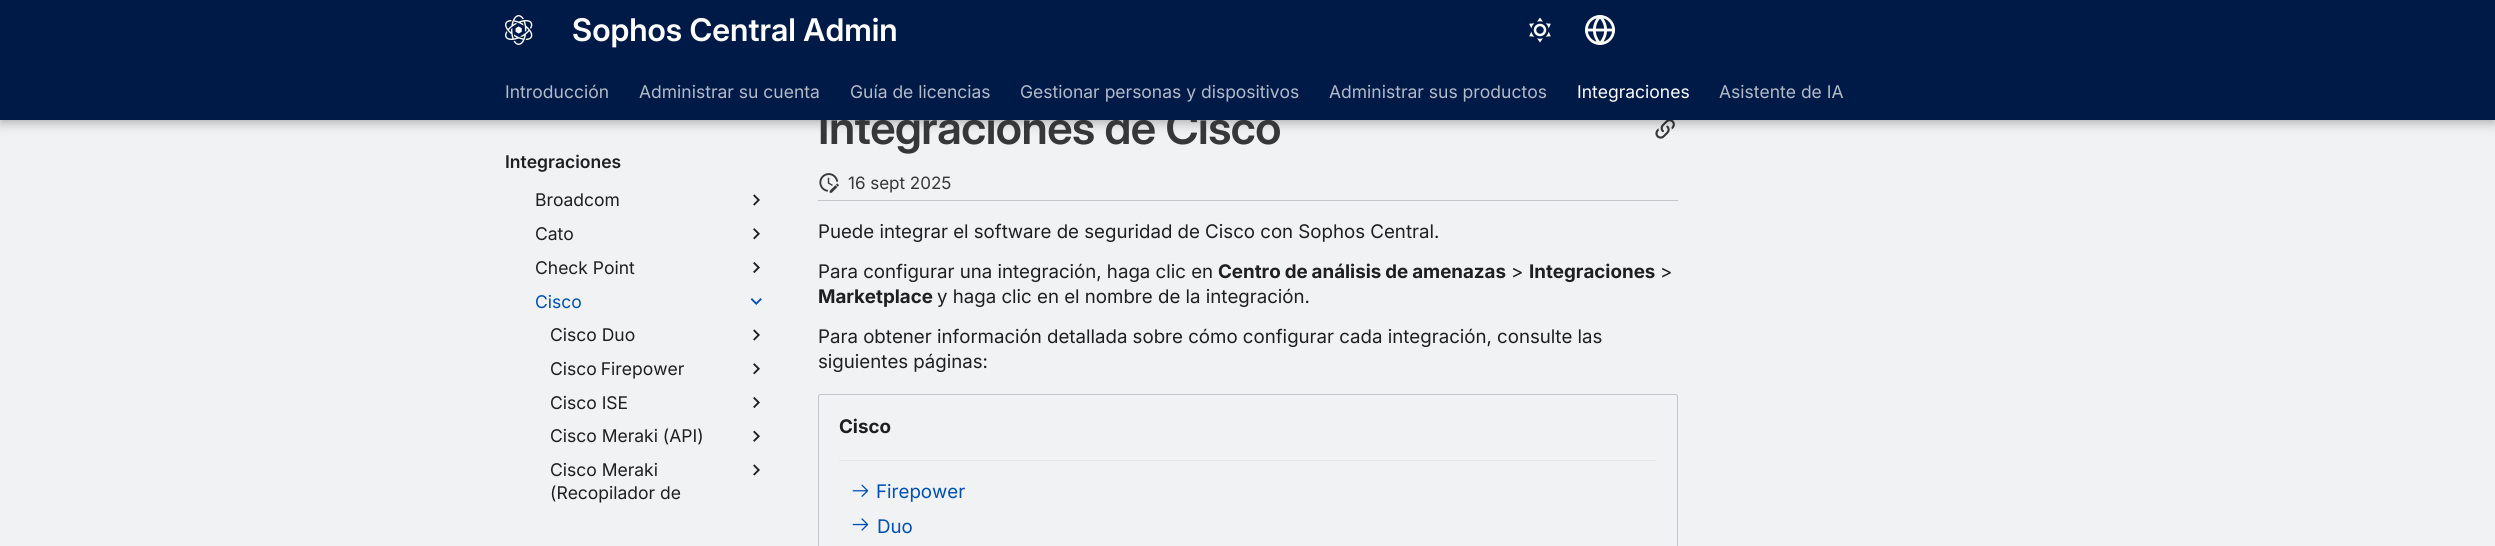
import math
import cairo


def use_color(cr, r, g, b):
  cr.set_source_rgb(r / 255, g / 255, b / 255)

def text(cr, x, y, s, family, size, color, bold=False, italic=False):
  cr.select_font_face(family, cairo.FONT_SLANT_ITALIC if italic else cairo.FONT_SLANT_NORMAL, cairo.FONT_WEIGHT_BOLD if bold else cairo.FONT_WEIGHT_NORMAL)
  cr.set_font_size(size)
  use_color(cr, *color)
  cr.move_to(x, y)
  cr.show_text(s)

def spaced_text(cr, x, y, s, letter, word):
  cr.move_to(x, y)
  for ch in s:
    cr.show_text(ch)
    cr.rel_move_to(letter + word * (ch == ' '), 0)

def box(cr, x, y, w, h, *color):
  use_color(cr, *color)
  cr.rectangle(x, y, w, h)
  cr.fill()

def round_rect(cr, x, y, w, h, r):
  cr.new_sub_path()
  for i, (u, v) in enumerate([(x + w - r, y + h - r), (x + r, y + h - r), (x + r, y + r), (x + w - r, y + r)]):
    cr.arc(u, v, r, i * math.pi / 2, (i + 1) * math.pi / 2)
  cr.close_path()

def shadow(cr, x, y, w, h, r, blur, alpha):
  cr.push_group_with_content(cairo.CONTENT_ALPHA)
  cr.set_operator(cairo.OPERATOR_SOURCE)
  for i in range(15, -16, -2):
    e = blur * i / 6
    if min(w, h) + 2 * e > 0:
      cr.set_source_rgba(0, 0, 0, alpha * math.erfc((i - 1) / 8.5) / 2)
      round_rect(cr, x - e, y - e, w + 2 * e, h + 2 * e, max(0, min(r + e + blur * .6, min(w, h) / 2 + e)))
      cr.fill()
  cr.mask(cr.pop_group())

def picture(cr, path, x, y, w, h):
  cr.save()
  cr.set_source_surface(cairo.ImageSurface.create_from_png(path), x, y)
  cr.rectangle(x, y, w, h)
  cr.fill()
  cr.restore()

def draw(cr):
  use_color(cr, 240, 242, 244)
  cr.paint()
  picture(cr, "img_09.png", 1655, 120, 20, 19)
  use_color(cr, 0, 0, 0)
  shadow(cr, 0, 5, 2495, 120, 0, 5, 0.2)
  shadow(cr, 0, 0, 2495, 120, 0, 2.5, 0.1)
  picture(cr, "img_04.png", 753, 194, 7, 12)
  picture(cr, "img_05.png", 753, 228, 7, 12)
  picture(cr, "img_06.png", 753, 262, 7, 11)
  picture(cr, "img_07.png", 750, 298, 12, 7)
  picture(cr, "img_04.png", 753, 329, 7, 12)
  picture(cr, "img_05.png", 753, 363, 7, 12)
  picture(cr, "img_06.png", 753, 397, 7, 11)
  picture(cr, "img_08.png", 753, 430, 7, 12)
  picture(cr, "img_04.png", 753, 464, 7, 12)
  box(cr, 818, 200, 860, 1, 194, 197, 202)
  picture(cr, "img_10.png", 819, 173, 20, 20)
  round_rect(cr, 818.5, 394.5, 859, 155, 2)
  cr.set_line_width(1)
  cr.stroke()
  box(cr, 839, 460, 817, 1, 229, 231, 234)
  picture(cr, "img_11.png", 852, 484, 17, 13)
  picture(cr, "img_12.png", 852, 518, 17, 13)
  text(cr, 505, 168, "Integraciones", "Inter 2 SemiBold", 17.5, (31, 31, 32))
  text(cr, 535, 206, "Broadcom", "Inter", 17.5, (31, 31, 32))
  text(cr, 535, 240, "Cato", "Inter", 17.5, (31, 31, 32))
  text(cr, 535, 274, "Check Point", "Inter", 17.5, (31, 31, 32))
  text(cr, 535, 308, "Cisco", "Inter", 17.5, (0, 79, 181))
  text(cr, 550, 341, "Cisco Duo", "Inter", 17.5, (31, 31, 32))
  spaced_text(cr, 550, 375, "Cisco Firepower", 0, -1)
  text(cr, 550, 409, "Cisco ISE", "Inter", 17.5, (31, 31, 32))
  text(cr, 550, 442, "Cisco Meraki (API)", "Inter", 17.5, (31, 31, 32))
  text(cr, 550, 476, "Cisco Meraki", "Inter", 17.5, (31, 31, 32))
  text(cr, 550, 499, "(Recopilador de", "Inter", 17.5, (31, 31, 32))
  cr.select_font_face("Inter SemiBold")
  cr.set_font_size(45.75)
  use_color(cr, 54, 55, 56)
  spaced_text(cr, 818, 144, "Integraciones de Cisco", -0.5, 0)
  box(cr, 0, 0, 2495, 120, 0, 26, 71)
  picture(cr, "img_03.png", 1585, 15, 30, 30)
  picture(cr, "img_02.png", 1529, 17, 22, 26)
  picture(cr, "img_01.png", 505, 15, 28, 30)
  text(cr, 1719, 98, "Asistente de IA", "Inter", 17.5, (179, 186, 200))
  text(cr, 1329, 98, "Administrar sus productos", "Inter", 17.5, (179, 186, 200))
  text(cr, 1020, 98, "Gestionar personas y dispositivos", "Inter", 17.5, (179, 186, 200))
  text(cr, 850, 98, "Guía de licencias", "Inter", 17.5, (179, 186, 200))
  text(cr, 639, 98, "Administrar su cuenta", "Inter", 17.5, (179, 186, 200))
  text(cr, 505, 98, "Introducción", "Inter", 17.5, (179, 186, 200))
  text(cr, 1577, 98, "Integraciones", "Inter", 17.5, (255, 255, 255))
  text(cr, 572, 41, "Sophos Central Admin", "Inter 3 SemiBold", 31.25, (255, 255, 255))
  text(cr, 848, 189, "16 sept 2025", "Inter", 17, (54, 55, 56))
  text(cr, 818, 238, "Puede integrar el software de seguridad de Cisco con Sophos Central.", "Inter 2", 18.75, (31, 31, 32))
  text(cr, 818, 278, "Para configurar una integración, haga clic en", "Inter 2", 18.75, (31, 31, 32))
  cr.select_font_face("Inter", cairo.FONT_SLANT_NORMAL, cairo.FONT_WEIGHT_BOLD)
  spaced_text(cr, 1218, 278, "Centro de análisis de amenazas", 0, -0.5)
  text(cr, 1511, 278, ">", "Inter 2", 18.75, (31, 31, 32))
  text(cr, 1529, 278, "Integraciones", "Inter", 18.75, (31, 31, 32), bold=True)
  text(cr, 1660, 278, ">", "Inter 2", 18.75, (31, 31, 32))
  text(cr, 818, 303, "Marketplace", "Inter", 18.75, (31, 31, 32), bold=True)
  text(cr, 937, 303, "y haga clic en el nombre de la integración.", "Inter 2", 18.75, (31, 31, 32))
  text(cr, 818, 343, "Para obtener información detallada sobre cómo configurar cada integración, consulte las", "Inter 2", 18.75, (31, 31, 32))
  text(cr, 818, 368, "siguientes páginas:", "Inter 2", 18.75, (31, 31, 32))
  text(cr, 839, 433, "Cisco", "Inter", 18.75, (31, 31, 32), bold=True)
  text(cr, 876, 498, "Firepower", "Inter 2", 18.75, (0, 79, 181))
  text(cr, 877, 533, "Duo", "Inter 2", 18.75, (0, 79, 181))


surface = cairo.ImageSurface(cairo.FORMAT_RGB24, 2495, 546)
cr = cairo.Context(surface)
options = cairo.FontOptions()
options.set_hint_metrics(cairo.HINT_METRICS_OFF)
options.set_hint_style(cairo.HINT_STYLE_NONE)
cr.set_font_options(options)
cr.set_miter_limit(4)
draw(cr)
surface.write_to_png("out.png")
